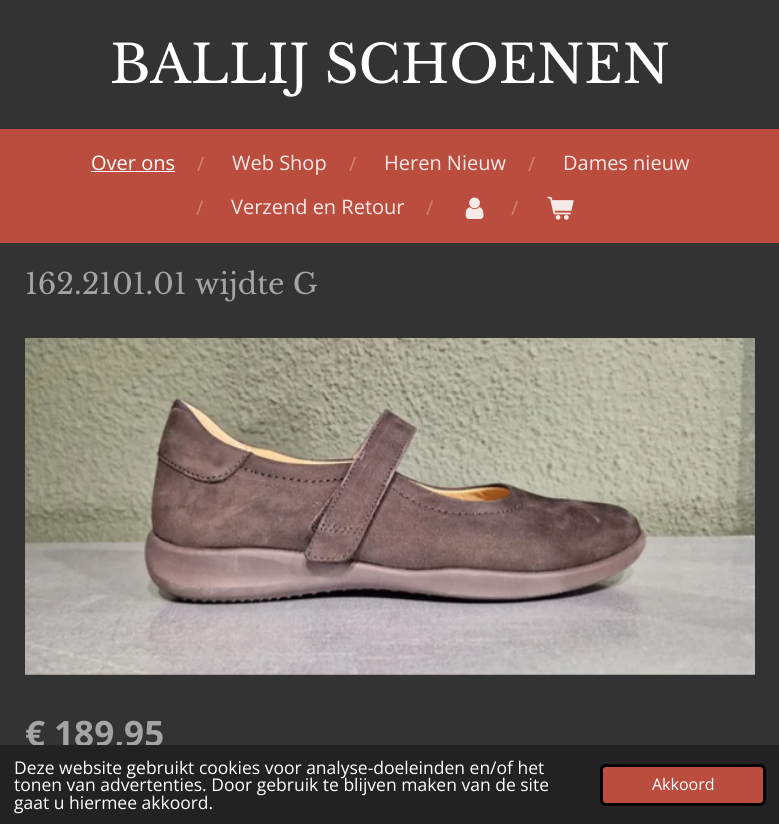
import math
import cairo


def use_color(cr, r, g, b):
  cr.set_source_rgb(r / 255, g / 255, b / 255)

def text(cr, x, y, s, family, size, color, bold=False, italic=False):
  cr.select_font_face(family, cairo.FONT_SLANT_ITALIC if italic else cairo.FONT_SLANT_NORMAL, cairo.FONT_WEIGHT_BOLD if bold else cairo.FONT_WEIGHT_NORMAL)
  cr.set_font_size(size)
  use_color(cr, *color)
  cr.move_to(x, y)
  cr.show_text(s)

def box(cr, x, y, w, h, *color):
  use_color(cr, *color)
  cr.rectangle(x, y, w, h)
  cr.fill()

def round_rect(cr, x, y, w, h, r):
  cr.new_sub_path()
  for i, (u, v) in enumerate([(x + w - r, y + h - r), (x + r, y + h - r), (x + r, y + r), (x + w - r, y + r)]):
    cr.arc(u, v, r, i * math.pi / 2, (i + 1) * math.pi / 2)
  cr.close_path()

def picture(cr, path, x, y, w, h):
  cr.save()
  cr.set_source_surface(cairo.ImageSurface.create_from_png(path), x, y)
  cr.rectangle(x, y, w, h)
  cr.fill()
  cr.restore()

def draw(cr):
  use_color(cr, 51, 51, 51)
  cr.paint()
  box(cr, 0, 129, 779, 114, 187, 77, 62)
  box(cr, 91, 171, 84, 1, 255, 255, 255)
  picture(cr, "img_01.png", 465, 197, 19, 22)
  picture(cr, "img_02.png", 547, 196, 27, 24)
  picture(cr, "img_03.png", 25, 338, 730, 337)
  text(cr, 110, 83, "BALLIJ SCHOENEN", "Libre Baskerville", 52.5, (255, 255, 255))
  text(cr, 91, 170, "Over ons", "Open Sans", 20, (255, 255, 255))
  text(cr, 197, 171, "/", "Open Sans", 20, (209, 128, 116))
  text(cr, 232, 170, "Web Shop", "Open Sans", 20, (247, 233, 231))
  text(cr, 349, 171, "/", "Open Sans", 20, (209, 128, 116))
  text(cr, 384, 170, "Heren Nieuw", "Open Sans", 20, (247, 233, 231))
  text(cr, 528, 171, "/", "Open Sans", 20, (209, 128, 116))
  text(cr, 563, 170, "Dames nieuw", "Open Sans", 20, (247, 233, 231))
  text(cr, 196, 215, "/", "Open Sans", 20, (209, 128, 116))
  text(cr, 231, 214, "Verzend en Retour", "Open Sans", 20, (247, 233, 231))
  text(cr, 426, 215, "/", "Open Sans", 20, (209, 128, 116))
  text(cr, 511, 215, "/", "Open Sans", 20, (209, 128, 116))
  text(cr, 25, 294, "162.2101.01 wijdte G", "Libre Baskerville", 28.75, (164, 164, 164))
  text(cr, 25, 746, "€ 189,95", "Open Sans", 35, (164, 164, 164), bold=True)
  box(cr, 0, 745, 779, 79, 34, 34, 34)
  text(cr, 14, 774, "Deze website gebruikt cookies voor analyse-doeleinden en/of het", "Open Sans", 17.5, (255, 255, 255))
  text(cr, 14, 791, "tonen van advertenties. Door gebruik te blijven maken van de site", "Open Sans", 17.5, (255, 255, 255))
  text(cr, 14, 809, "gaat u hiermee akkoord.", "Open Sans", 17.5, (255, 255, 255))
  use_color(cr, 187, 77, 62)
  round_rect(cr, 601.5, 765.5, 163, 39, 4.5)
  cr.fill_preserve()
  use_color(cr, 0, 0, 0)
  cr.set_line_width(3)
  cr.stroke()
  text(cr, 652, 790, "Akkoord", "Open Sans", 16, (255, 255, 255))


surface = cairo.ImageSurface(cairo.FORMAT_RGB24, 779, 824)
cr = cairo.Context(surface)
options = cairo.FontOptions()
options.set_hint_metrics(cairo.HINT_METRICS_OFF)
options.set_hint_style(cairo.HINT_STYLE_NONE)
cr.set_font_options(options)
cr.set_miter_limit(4)
draw(cr)
surface.write_to_png("out.png")
